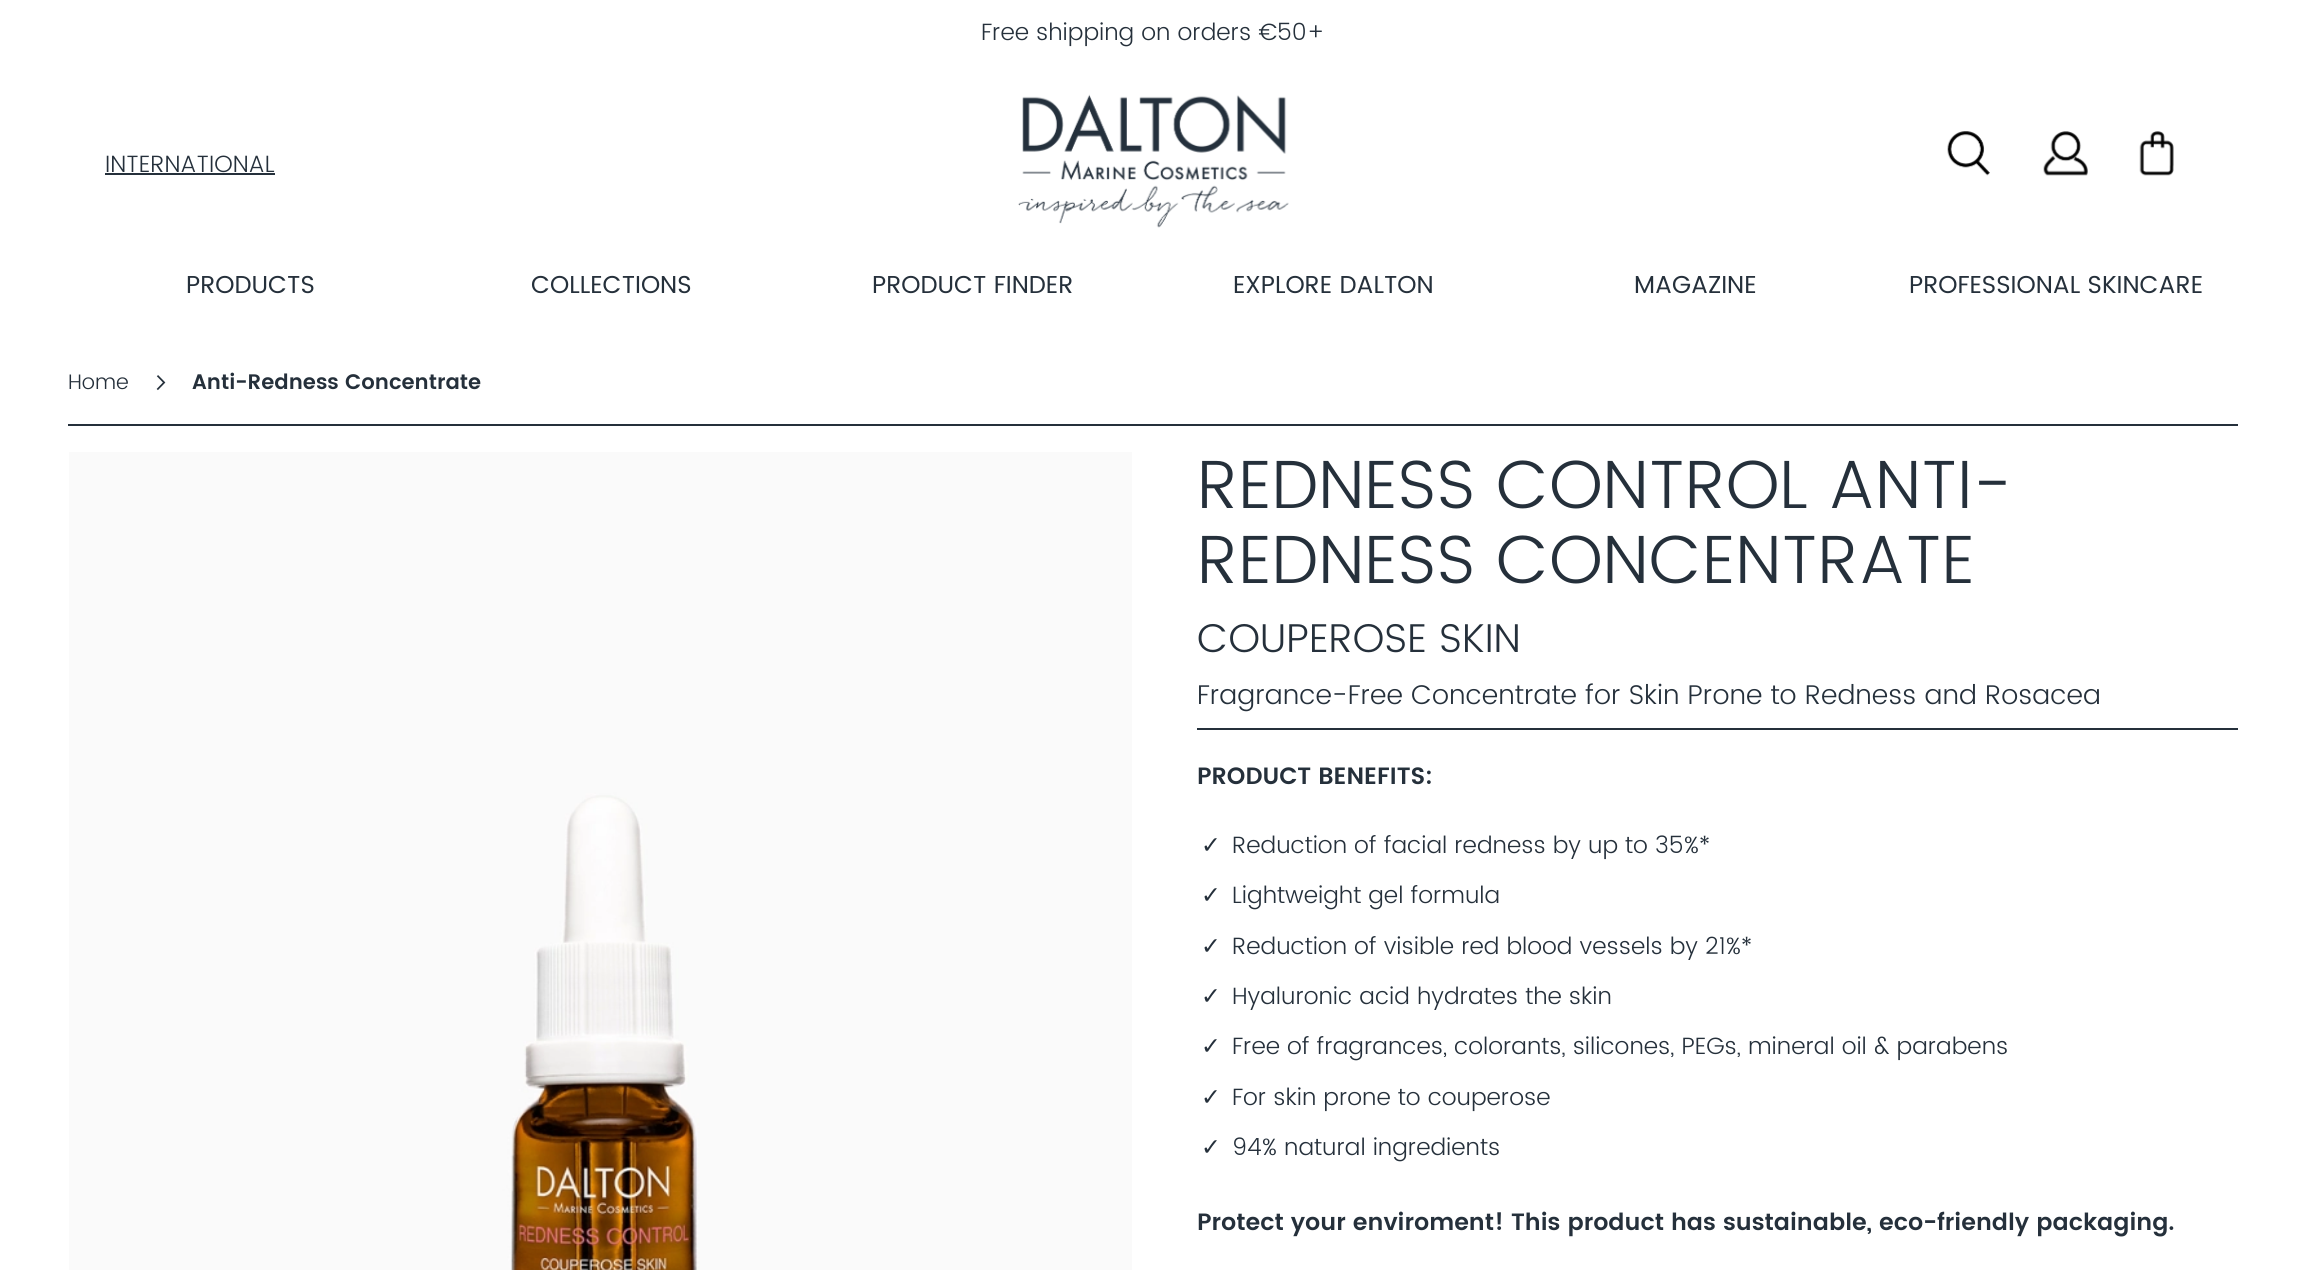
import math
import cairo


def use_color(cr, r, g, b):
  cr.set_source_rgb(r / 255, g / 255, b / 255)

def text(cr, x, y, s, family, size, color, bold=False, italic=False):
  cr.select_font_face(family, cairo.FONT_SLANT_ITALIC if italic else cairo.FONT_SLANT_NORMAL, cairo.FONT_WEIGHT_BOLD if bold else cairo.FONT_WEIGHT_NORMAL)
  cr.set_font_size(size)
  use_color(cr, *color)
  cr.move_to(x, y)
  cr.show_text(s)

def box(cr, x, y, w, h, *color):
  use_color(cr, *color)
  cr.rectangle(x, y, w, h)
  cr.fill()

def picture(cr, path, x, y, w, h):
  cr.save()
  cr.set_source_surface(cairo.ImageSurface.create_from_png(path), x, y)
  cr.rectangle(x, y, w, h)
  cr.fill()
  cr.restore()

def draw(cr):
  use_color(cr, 255, 255, 255)
  cr.paint()
  box(cr, 105, 173, 170, 2, 37, 48, 59)
  picture(cr, "img_01.png", 1018, 94, 271, 134)
  picture(cr, "img_02.png", 1947, 131, 43, 45)
  picture(cr, "img_03.png", 2043, 131, 45, 45)
  picture(cr, "img_04.png", 2139, 131, 35, 45)
  box(cr, 68, 424, 2170, 2, 37, 48, 59)
  picture(cr, "img_05.png", 156, 375, 10, 16)
  picture(cr, "img_06.png", 69, 452, 1063, 818)
  box(cr, 1197, 728, 1041, 2, 37, 48, 59)
  text(cr, 981, 40, "Free shipping on orders €50+", "Poppins Light", 23.6, (37, 48, 59))
  text(cr, 105, 172, "INTERNATIONAL", "Poppins Light", 23.6, (37, 48, 59))
  text(cr, 186, 293, "PRODUCTS", "Poppins", 24.5, (37, 48, 59))
  text(cr, 531, 293, "COLLECTIONS", "Poppins", 24.5, (37, 48, 59))
  text(cr, 872, 293, "PRODUCT FINDER", "Poppins", 24.5, (37, 48, 59))
  text(cr, 1233, 293, "EXPLORE DALTON", "Poppins", 24.5, (37, 48, 59))
  text(cr, 1634, 293, "MAGAZINE", "Poppins", 24.5, (37, 48, 59))
  text(cr, 1909, 293, "PROFESSIONAL SKINCARE", "Poppins", 24.5, (37, 48, 59))
  text(cr, 68, 389, "Home", "Poppins Light", 21, (37, 48, 59))
  text(cr, 192, 389, "Anti-Redness Concentrate", "Poppins SemiBold", 21, (37, 48, 59))
  text(cr, 1197, 508, "REDNESS CONTROL ANTI-", "Poppins Light", 68.25, (37, 48, 59))
  text(cr, 1197, 583, "REDNESS CONCENTRATE", "Poppins Light", 68.25, (37, 48, 59))
  text(cr, 1197, 652, "COUPEROSE SKIN", "Poppins Light", 40.25, (37, 48, 59))
  text(cr, 1197, 704, "Fragrance-Free Concentrate for Skin Prone to Redness and Rosacea", "Poppins Light", 27.1, (37, 48, 59))
  text(cr, 1197, 784, "PRODUCT BENEFITS:", "Poppins SemiBold", 23.6, (37, 48, 59))
  text(cr, 1201, 853, "✓", "DejaVu Sans", 23.6, (37, 48, 59))
  text(cr, 1232, 853, "Reduction of facial redness by up to 35%*", "Poppins Light", 23.6, (37, 48, 59))
  text(cr, 1201, 903, "✓", "DejaVu Sans", 23.6, (37, 48, 59))
  text(cr, 1232, 903, "Lightweight gel formula", "Poppins Light", 23.6, (37, 48, 59))
  text(cr, 1201, 954, "✓", "DejaVu Sans", 23.6, (37, 48, 59))
  text(cr, 1232, 954, "Reduction of visible red blood vessels by 21%*", "Poppins Light", 23.6, (37, 48, 59))
  text(cr, 1201, 1004, "✓", "DejaVu Sans", 23.6, (37, 48, 59))
  text(cr, 1232, 1004, "Hyaluronic acid hydrates the skin", "Poppins Light", 23.6, (37, 48, 59))
  text(cr, 1201, 1054, "✓", "DejaVu Sans", 23.6, (37, 48, 59))
  text(cr, 1232, 1054, "Free of fragrances, colorants, silicones, PEGs, mineral oil & parabens", "Poppins Light", 23.6, (37, 48, 59))
  text(cr, 1201, 1105, "✓", "DejaVu Sans", 23.6, (37, 48, 59))
  text(cr, 1232, 1105, "For skin prone to couperose", "Poppins Light", 23.6, (37, 48, 59))
  text(cr, 1201, 1155, "✓", "DejaVu Sans", 23.6, (37, 48, 59))
  text(cr, 1232, 1155, "94% natural ingredients", "Poppins Light", 23.6, (37, 48, 59))
  text(cr, 1197, 1230, "Protect your enviroment! This product has sustainable, eco-friendly packaging.", "Poppins SemiBold", 23.6, (37, 48, 59))


surface = cairo.ImageSurface(cairo.FORMAT_RGB24, 2306, 1270)
cr = cairo.Context(surface)
options = cairo.FontOptions()
options.set_hint_metrics(cairo.HINT_METRICS_OFF)
options.set_hint_style(cairo.HINT_STYLE_NONE)
cr.set_font_options(options)
cr.set_miter_limit(4)
draw(cr)
surface.write_to_png("out.png")
